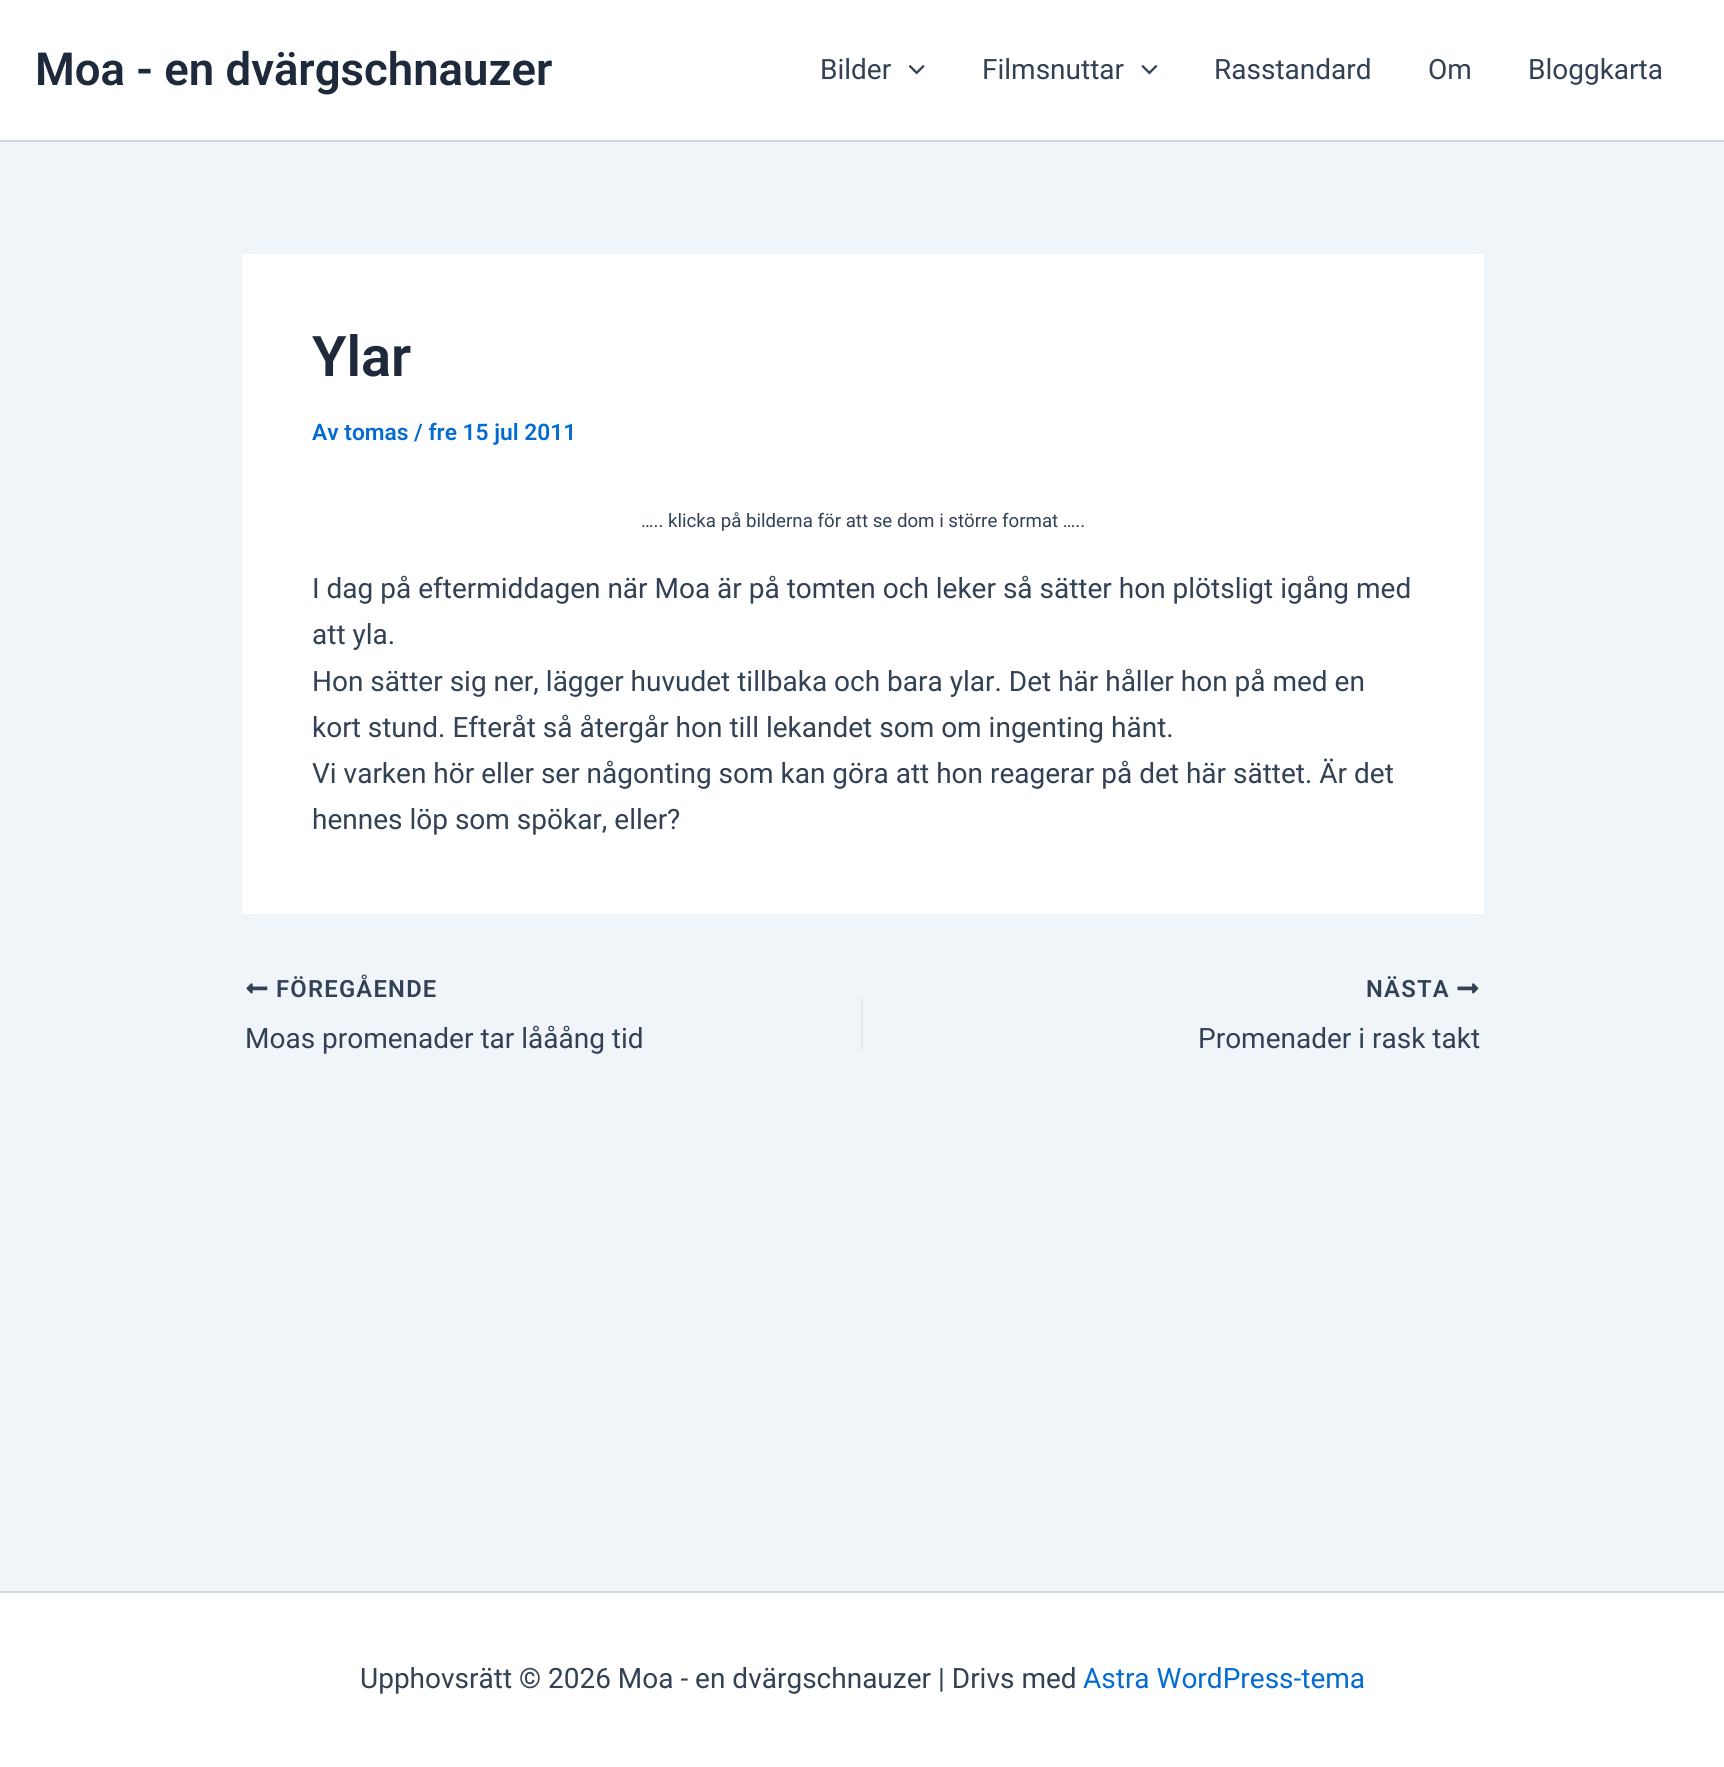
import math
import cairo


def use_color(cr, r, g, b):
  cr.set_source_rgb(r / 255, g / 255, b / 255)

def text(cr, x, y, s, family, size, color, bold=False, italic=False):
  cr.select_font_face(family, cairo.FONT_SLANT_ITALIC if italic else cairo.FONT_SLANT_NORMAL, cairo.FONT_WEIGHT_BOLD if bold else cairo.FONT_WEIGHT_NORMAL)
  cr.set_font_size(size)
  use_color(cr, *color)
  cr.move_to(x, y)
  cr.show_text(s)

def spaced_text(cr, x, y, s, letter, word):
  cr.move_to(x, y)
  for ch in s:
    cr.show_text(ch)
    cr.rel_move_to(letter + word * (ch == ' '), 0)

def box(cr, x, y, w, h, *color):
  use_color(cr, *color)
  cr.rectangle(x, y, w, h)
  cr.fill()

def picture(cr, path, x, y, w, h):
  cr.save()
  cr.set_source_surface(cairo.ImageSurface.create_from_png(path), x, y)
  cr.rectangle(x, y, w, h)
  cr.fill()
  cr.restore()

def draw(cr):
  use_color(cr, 240, 245, 250)
  cr.paint()
  box(cr, 0, 0, 1724, 140, 255, 255, 255)
  box(cr, 0, 140, 1724, 2, 209, 213, 219)
  picture(cr, "img_01.png", 908, 64, 17, 11)
  picture(cr, "img_02.png", 1141, 64, 17, 11)
  box(cr, 242, 254, 1242, 660, 255, 255, 255)
  picture(cr, "img_03.png", 246, 983, 22, 11)
  box(cr, 861, 998, 2, 52, 225, 232, 237)
  picture(cr, "img_04.png", 1457, 983, 22, 11)
  box(cr, 0, 1593, 1724, 174, 255, 255, 255)
  box(cr, 0, 1591, 1724, 2, 209, 213, 219)
  text(cr, 35, 85, "Moa - en dvärgschnauzer", "Roboto SemiBold", 45.5, (30, 41, 59))
  text(cr, 820, 79, "Bilder", "Roboto", 28, (51, 65, 85))
  text(cr, 982, 79, "Filmsnuttar", "Roboto", 28, (51, 65, 85))
  text(cr, 1214, 79, "Rasstandard", "Roboto", 28, (51, 65, 85))
  text(cr, 1428, 79, "Om", "Roboto", 28, (51, 65, 85))
  text(cr, 1528, 79, "Bloggkarta", "Roboto", 28, (51, 65, 85))
  text(cr, 312, 376, "Ylar", "Roboto SemiBold", 56, (30, 41, 59))
  text(cr, 312, 440, "Av tomas / fre 15 jul 2011", "Roboto SemiBold", 22.75, (4, 107, 210))
  text(cr, 641, 527, "….. klicka på bilderna för att se dom i större format …..", "Roboto", 18.7, (51, 65, 85))
  text(cr, 312, 598, "I dag på eftermiddagen när Moa är på tomten och leker så sätter hon plötsligt igång med", "Roboto", 28, (51, 65, 85))
  text(cr, 312, 644, "att yla.", "Roboto", 28, (51, 65, 85))
  text(cr, 312, 691, "Hon sätter sig ner, lägger huvudet tillbaka och bara ylar. Det här håller hon på med en", "Roboto", 28, (51, 65, 85))
  text(cr, 312, 737, "kort stund. Efteråt så återgår hon till lekandet som om ingenting hänt.", "Roboto", 28, (51, 65, 85))
  text(cr, 312, 783, "Vi varken hör eller ser någonting som kan göra att hon reagerar på det här sättet. Är det", "Roboto", 28, (51, 65, 85))
  text(cr, 312, 829, "hennes löp som spökar, eller?", "Roboto", 28, (51, 65, 85))
  cr.select_font_face("Roboto SemiBold")
  cr.set_font_size(23.75)
  spaced_text(cr, 276, 997, "FÖREGÅENDE", 1.25, 0)
  text(cr, 245, 1048, "Moas promenader tar lååång tid", "Roboto", 28, (51, 65, 85))
  cr.select_font_face("Roboto SemiBold")
  cr.set_font_size(23.75)
  spaced_text(cr, 1366, 997, "NÄSTA", 1.25, 0)
  text(cr, 1198, 1048, "Promenader i rask takt", "Roboto", 28, (51, 65, 85))
  text(cr, 360, 1688, "Upphovsrätt © 2026 Moa - en dvärgschnauzer | Drivs med", "Roboto", 28, (51, 65, 85))
  text(cr, 1083, 1688, "Astra WordPress-tema", "Roboto", 28, (4, 107, 210))


surface = cairo.ImageSurface(cairo.FORMAT_RGB24, 1724, 1767)
cr = cairo.Context(surface)
options = cairo.FontOptions()
options.set_hint_metrics(cairo.HINT_METRICS_OFF)
options.set_hint_style(cairo.HINT_STYLE_NONE)
cr.set_font_options(options)
cr.set_miter_limit(4)
draw(cr)
surface.write_to_png("out.png")
